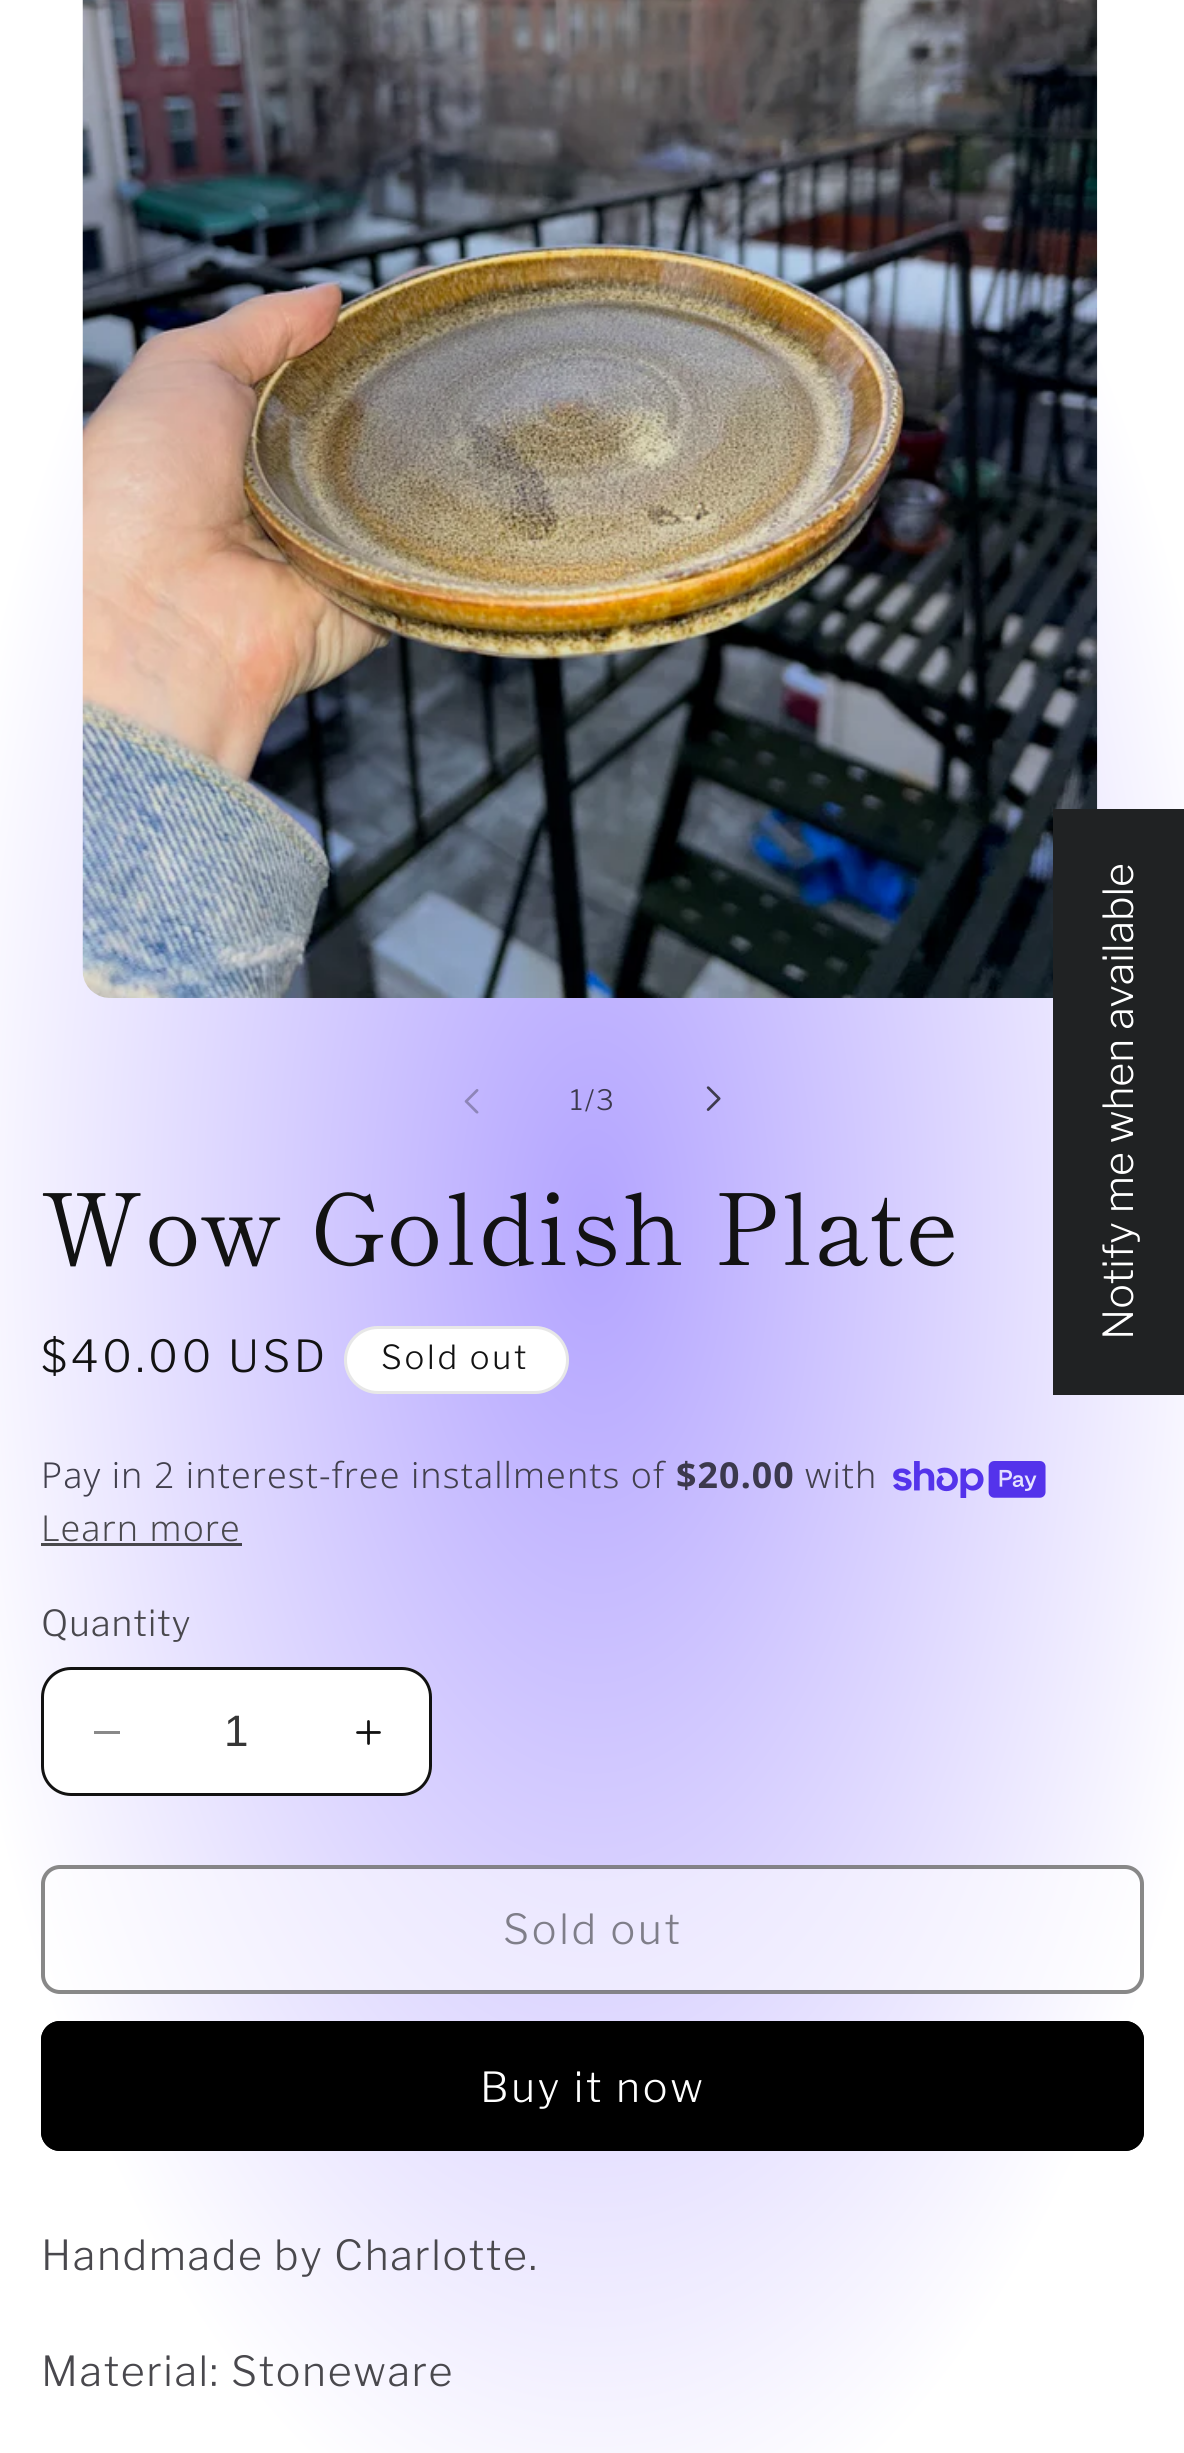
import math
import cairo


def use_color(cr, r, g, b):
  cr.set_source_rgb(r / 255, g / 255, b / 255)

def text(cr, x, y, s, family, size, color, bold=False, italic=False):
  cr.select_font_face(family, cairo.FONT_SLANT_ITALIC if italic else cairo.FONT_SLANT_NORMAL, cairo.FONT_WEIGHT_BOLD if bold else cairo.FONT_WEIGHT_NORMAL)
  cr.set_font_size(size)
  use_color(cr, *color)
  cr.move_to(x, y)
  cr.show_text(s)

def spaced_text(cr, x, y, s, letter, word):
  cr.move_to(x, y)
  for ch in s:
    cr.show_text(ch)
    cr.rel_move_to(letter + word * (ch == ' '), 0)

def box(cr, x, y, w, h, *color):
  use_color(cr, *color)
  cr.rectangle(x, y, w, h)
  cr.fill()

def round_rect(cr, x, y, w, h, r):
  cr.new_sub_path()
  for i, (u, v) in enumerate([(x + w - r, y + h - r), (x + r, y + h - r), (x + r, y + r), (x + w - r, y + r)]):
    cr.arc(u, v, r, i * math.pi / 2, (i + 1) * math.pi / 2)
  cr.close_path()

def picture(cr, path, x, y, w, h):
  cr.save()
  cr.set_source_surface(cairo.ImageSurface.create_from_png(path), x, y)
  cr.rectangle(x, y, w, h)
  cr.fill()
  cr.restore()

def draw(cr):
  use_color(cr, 255, 255, 255)
  cr.paint()
  gradient = cairo.RadialGradient(0, 0, 0, 0, 0, 1)
  gradient.set_matrix(cairo.Matrix(1 / 838, 0, 0, 1 / 1735, -1 * 593 / 838, -1 * 1227 / 1735))
  gradient.add_color_stop_rgba(0, 0.702, 0.643, 1, 1)
  gradient.add_color_stop_rgba(0.79, 1, 1, 1, 1)
  gradient.add_color_stop_rgba(0.97, 1, 1, 1, 1)
  cr.set_source(gradient)
  cr.rectangle(0, 0, 1184, 2453)
  cr.fill()
  gradient = cairo.RadialGradient(0, 0, 0, 0, 0, 1)
  gradient.set_matrix(cairo.Matrix(1 / 838, 0, 0, 1 / 1735, -1 * 593 / 838, -1 * 1227 / 1735))
  gradient.add_color_stop_rgba(0, 0.227, 0.216, 0.302, 1)
  gradient.add_color_stop_rgba(0.79, 0.302, 0.302, 0.302, 1)
  gradient.add_color_stop_rgba(0.97, 0.302, 0.302, 0.302, 1)
  cr.set_source(gradient)
  cr.rectangle(41, 1543, 201, 3)
  cr.fill()
  picture(cr, "img_01.png", 82, 0, 1016, 998)
  picture(cr, "img_02.png", 464, 1089, 15, 25)
  picture(cr, "img_03.png", 706, 1086, 15, 25)
  use_color(cr, 255, 255, 255)
  round_rect(cr, 344, 1326, 225, 68, 34)
  cr.fill()
  round_rect(cr, 345.5, 1327.5, 222, 65, 32.5)
  cr.set_source_rgba(0.071, 0.071, 0.071, 0.1)
  cr.set_line_width(3)
  cr.stroke()
  picture(cr, "img_04.png", 893, 1461, 153, 37)
  use_color(cr, 255, 255, 255)
  round_rect(cr, 41, 1667, 391, 129, 30)
  cr.fill()
  box(cr, 94, 1731, 26, 3, 137, 137, 137)
  picture(cr, "img_05.png", 356, 1720, 25, 25)
  round_rect(cr, 42.5, 1668.5, 388, 126, 28.5)
  use_color(cr, 18, 18, 18)
  cr.stroke()
  cr.set_source_rgba(1, 1, 1, 0.5)
  round_rect(cr, 41, 1865, 1103, 129, 19)
  cr.fill()
  round_rect(cr, 42.5, 1866.5, 1100, 126, 17.5)
  cr.stroke()
  round_rect(cr, 43, 1867, 1099, 125, 17)
  cr.set_source_rgba(0.071, 0.071, 0.071, 0.5)
  cr.set_line_width(4)
  cr.stroke()
  use_color(cr, 0, 0, 0)
  round_rect(cr, 41, 2021, 1103, 130, 19)
  cr.fill()
  round_rect(cr, 42.5, 2022.5, 1100, 127, 17.5)
  cr.set_line_width(3)
  cr.stroke()
  box(cr, 1053, 809, 131, 586, 32, 34, 35)
  cr.select_font_face("Libre Franklin Light")
  cr.set_font_size(28)
  use_color(cr, 60, 57, 77)
  spaced_text(cr, 570, 1110, "1/3", 2, 0)
  cr.select_font_face("Shippori Mincho")
  cr.set_font_size(99)
  use_color(cr, 18, 18, 18)
  spaced_text(cr, 41, 1265, "Wow Goldish Plate", 2, 0)
  cr.select_font_face("Libre Franklin Light")
  cr.set_font_size(44)
  spaced_text(cr, 41, 1372, "$40.00 USD", 3.5, 0)
  cr.set_font_size(33)
  spaced_text(cr, 381, 1369, "Sold out", 2.75, 0)
  cr.select_font_face("Noto Sans Light")
  cr.set_font_size(35.75)
  use_color(cr, 66, 64, 77)
  spaced_text(cr, 41, 1488, "Pay in 2 interest-free installments of", 1.1, 0)
  cr.select_font_face("Noto Sans", cairo.FONT_SLANT_NORMAL, cairo.FONT_WEIGHT_BOLD)
  use_color(cr, 60, 57, 77)
  spaced_text(cr, 676, 1488, "$20.00", 1.1, 0)
  cr.select_font_face("Noto Sans Light")
  use_color(cr, 66, 64, 77)
  spaced_text(cr, 805, 1488, "with", 1.1, 0)
  use_color(cr, 73, 72, 77)
  spaced_text(cr, 41, 1541, "Learn more", 1.1, 0)
  cr.select_font_face("Libre Franklin Light")
  spaced_text(cr, 41, 1636, "Quantity", 1.1, 0)
  text(cr, 224, 1746, "1", "Liberation Sans", 44, (54, 54, 54))
  cr.select_font_face("Libre Franklin Light")
  cr.set_font_size(41.25)
  use_color(cr, 127, 126, 137)
  spaced_text(cr, 503, 1944, "Sold out", 2.75, 0)
  use_color(cr, 255, 255, 255)
  spaced_text(cr, 480, 2102, "Buy it now", 2.75, 0)
  use_color(cr, 73, 72, 77)
  spaced_text(cr, 41, 2270, "Handmade by Charlotte.", 1.65, 0)
  spaced_text(cr, 41, 2386, "Material:", 1.65, 0)
  spaced_text(cr, 231, 2386, "Stoneware", 1.65, 0)
  cr.save()
  cr.translate(1133, 1340)
  cr.rotate(-90 * math.pi / 180)
  text(cr, 0, 0, "Notify me when available", "Libre Franklin Light", 41.25, (255, 255, 255))
  cr.restore()


surface = cairo.ImageSurface(cairo.FORMAT_RGB24, 1184, 2453)
cr = cairo.Context(surface)
options = cairo.FontOptions()
options.set_hint_metrics(cairo.HINT_METRICS_OFF)
options.set_hint_style(cairo.HINT_STYLE_NONE)
cr.set_font_options(options)
cr.set_miter_limit(4)
draw(cr)
surface.write_to_png("out.png")
